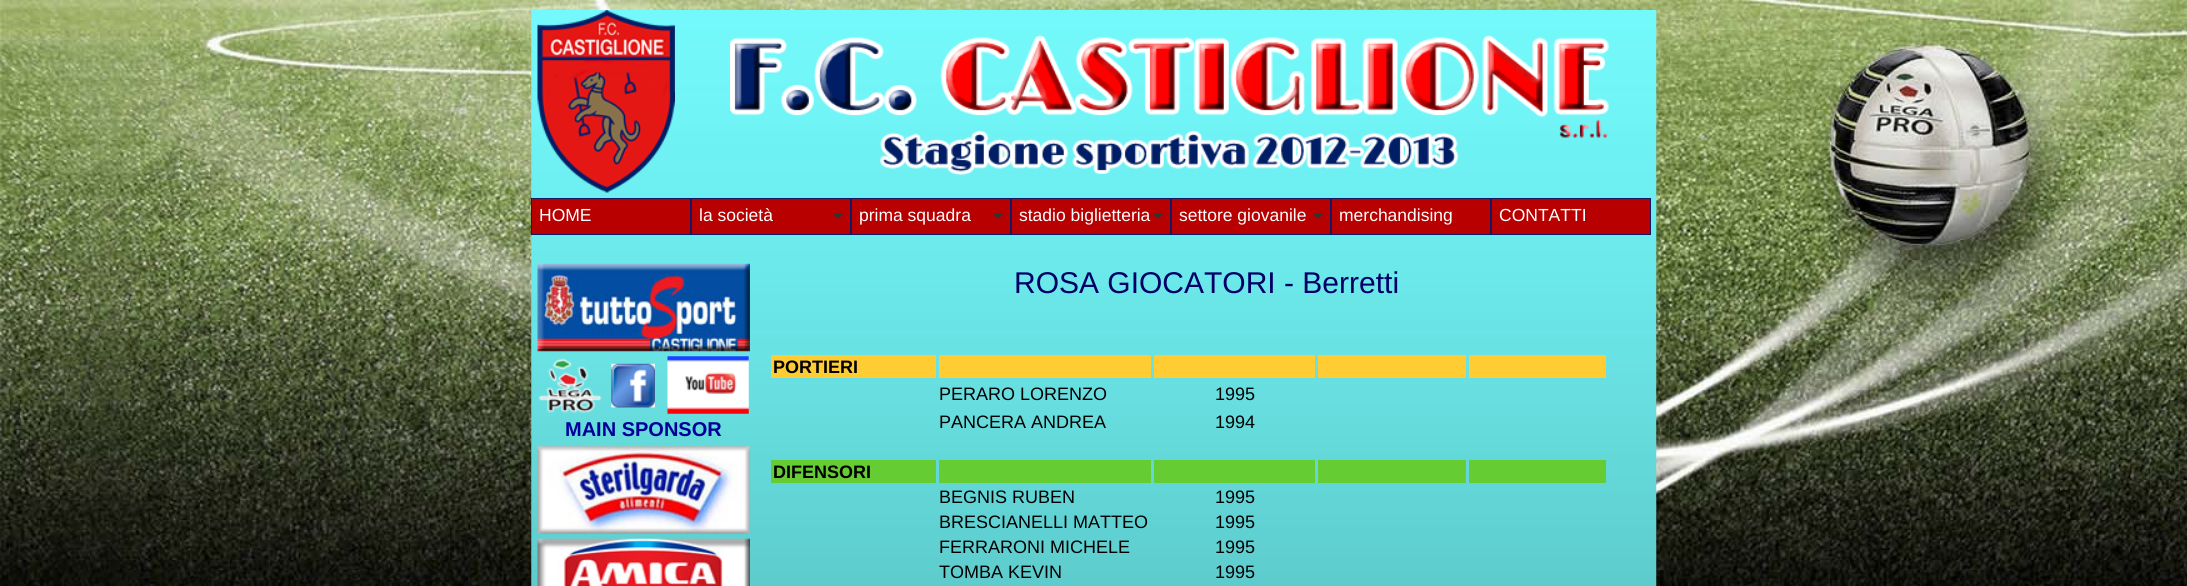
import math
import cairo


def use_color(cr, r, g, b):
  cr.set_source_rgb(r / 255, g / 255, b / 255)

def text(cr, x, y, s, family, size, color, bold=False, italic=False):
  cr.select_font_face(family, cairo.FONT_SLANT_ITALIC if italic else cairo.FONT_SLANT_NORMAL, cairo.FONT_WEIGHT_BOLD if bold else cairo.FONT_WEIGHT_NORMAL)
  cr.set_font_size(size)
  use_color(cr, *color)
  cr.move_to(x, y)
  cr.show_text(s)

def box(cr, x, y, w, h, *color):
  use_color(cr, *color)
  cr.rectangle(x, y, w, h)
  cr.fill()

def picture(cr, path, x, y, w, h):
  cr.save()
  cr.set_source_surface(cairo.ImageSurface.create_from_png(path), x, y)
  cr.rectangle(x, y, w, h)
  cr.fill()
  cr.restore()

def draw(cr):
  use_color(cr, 255, 255, 255)
  cr.paint()
  picture(cr, "img_01.png", 0, 0, 2187, 586)
  picture(cr, "img_02.png", 531, 10, 1126, 576)
  picture(cr, "img_03.png", 537, 10, 138, 183)
  picture(cr, "img_04.png", 730, 35, 879, 140)
  use_color(cr, 184, 0, 0)
  cr.rectangle(531.5, 198.5, 159, 36)
  cr.fill_preserve()
  use_color(cr, 18, 24, 98)
  cr.set_line_width(1)
  cr.stroke()
  box(cr, 692, 199, 158, 35, 184, 0, 0)
  picture(cr, "img_05.png", 833, 213, 10, 6)
  cr.rectangle(691.5, 198.5, 159, 36)
  use_color(cr, 18, 24, 98)
  cr.stroke()
  box(cr, 852, 199, 158, 35, 184, 0, 0)
  picture(cr, "img_05.png", 993, 213, 10, 6)
  cr.rectangle(851.5, 198.5, 159, 36)
  use_color(cr, 18, 24, 98)
  cr.stroke()
  box(cr, 1012, 199, 158, 35, 184, 0, 0)
  picture(cr, "img_05.png", 1153, 213, 10, 6)
  cr.rectangle(1011.5, 198.5, 159, 36)
  use_color(cr, 18, 24, 98)
  cr.stroke()
  box(cr, 1172, 199, 158, 35, 184, 0, 0)
  picture(cr, "img_06.png", 1313, 213, 10, 6)
  cr.rectangle(1171.5, 198.5, 159, 36)
  use_color(cr, 18, 24, 98)
  cr.stroke()
  use_color(cr, 184, 0, 0)
  cr.rectangle(1331.5, 198.5, 159, 36)
  cr.fill_preserve()
  use_color(cr, 18, 24, 98)
  cr.stroke()
  use_color(cr, 184, 0, 0)
  cr.rectangle(1491.5, 198.5, 159, 36)
  cr.fill_preserve()
  use_color(cr, 18, 24, 98)
  cr.stroke()
  picture(cr, "img_07.png", 537, 263, 213, 89)
  picture(cr, "img_08.png", 538, 358, 64, 55)
  picture(cr, "img_09.png", 611, 363, 44, 45)
  picture(cr, "img_10.png", 667, 356, 82, 58)
  picture(cr, "img_11.png", 537, 446, 213, 88)
  picture(cr, "img_12.png", 537, 538, 213, 48)
  box(cr, 771, 355, 165, 23, 255, 204, 51)
  box(cr, 939, 355, 212, 23, 255, 204, 51)
  box(cr, 1154, 355, 161, 23, 255, 204, 51)
  box(cr, 1318, 355, 148, 23, 255, 204, 51)
  box(cr, 1469, 355, 137, 23, 255, 204, 51)
  box(cr, 771, 460, 165, 23, 102, 204, 51)
  box(cr, 939, 460, 212, 23, 102, 204, 51)
  box(cr, 1154, 460, 161, 23, 102, 204, 51)
  box(cr, 1318, 460, 148, 23, 102, 204, 51)
  box(cr, 1469, 460, 137, 23, 102, 204, 51)
  text(cr, 539, 221, "HOME", "Liberation Sans", 17.5, (255, 255, 255))
  text(cr, 699, 221, "la società", "Liberation Sans", 17.5, (255, 255, 255))
  text(cr, 859, 221, "prima squadra", "Liberation Sans", 17.5, (255, 255, 255))
  text(cr, 1019, 221, "stadio biglietteria", "Liberation Sans", 17.5, (255, 255, 255))
  text(cr, 1179, 221, "settore giovanile", "Liberation Sans", 17.5, (255, 255, 255))
  text(cr, 1339, 221, "merchandising", "Liberation Sans", 17.5, (255, 255, 255))
  text(cr, 1499, 221, "CONTATTI", "Liberation Sans", 17.5, (255, 255, 255))
  text(cr, 565, 436, "MAIN SPONSOR", "Liberation Sans", 20, (0, 0, 153), bold=True)
  text(cr, 1014, 293, "ROSA GIOCATORI - Berretti", "Liberation Sans", 30, (0, 0, 102))
  text(cr, 773, 373, "PORTIERI", "Liberation Sans", 18, (0, 0, 0), bold=True)
  text(cr, 939, 400, "PERARO LORENZO", "Liberation Sans", 18, (0, 0, 0))
  text(cr, 1215, 400, "1995", "Liberation Sans", 18, (0, 0, 0))
  text(cr, 939, 428, "PANCERA ANDREA", "Liberation Sans", 18, (0, 0, 0))
  text(cr, 1215, 428, "1994", "Liberation Sans", 18, (0, 0, 0))
  text(cr, 773, 478, "DIFENSORI", "Liberation Sans", 18, (0, 0, 0), bold=True)
  text(cr, 939, 503, "BEGNIS RUBEN", "Liberation Sans", 18, (0, 0, 0))
  text(cr, 1215, 503, "1995", "Liberation Sans", 18, (0, 0, 0))
  text(cr, 939, 528, "BRESCIANELLI MATTEO", "Liberation Sans", 18, (0, 0, 0))
  text(cr, 1215, 528, "1995", "Liberation Sans", 18, (0, 0, 0))
  text(cr, 939, 553, "FERRARONI MICHELE", "Liberation Sans", 18, (0, 0, 0))
  text(cr, 1215, 553, "1995", "Liberation Sans", 18, (0, 0, 0))
  text(cr, 939, 578, "TOMBA KEVIN", "Liberation Sans", 18, (0, 0, 0))
  text(cr, 1215, 578, "1995", "Liberation Sans", 18, (0, 0, 0))


surface = cairo.ImageSurface(cairo.FORMAT_RGB24, 2187, 586)
cr = cairo.Context(surface)
options = cairo.FontOptions()
options.set_hint_metrics(cairo.HINT_METRICS_OFF)
options.set_hint_style(cairo.HINT_STYLE_NONE)
cr.set_font_options(options)
cr.set_miter_limit(4)
draw(cr)
surface.write_to_png("out.png")
